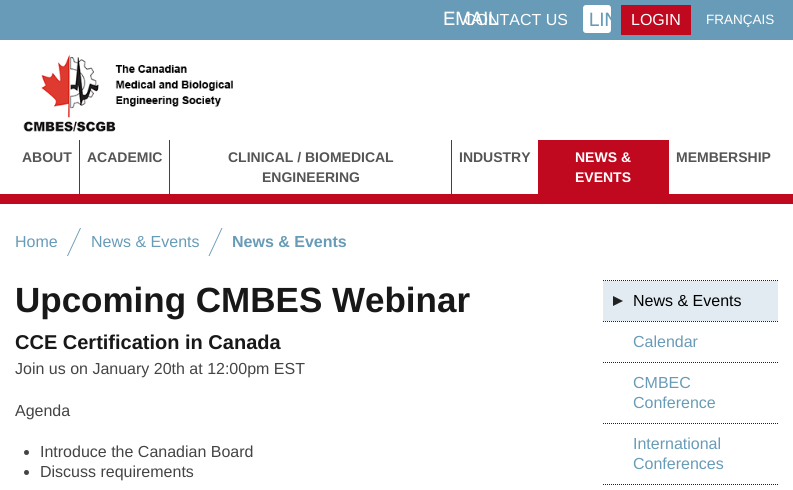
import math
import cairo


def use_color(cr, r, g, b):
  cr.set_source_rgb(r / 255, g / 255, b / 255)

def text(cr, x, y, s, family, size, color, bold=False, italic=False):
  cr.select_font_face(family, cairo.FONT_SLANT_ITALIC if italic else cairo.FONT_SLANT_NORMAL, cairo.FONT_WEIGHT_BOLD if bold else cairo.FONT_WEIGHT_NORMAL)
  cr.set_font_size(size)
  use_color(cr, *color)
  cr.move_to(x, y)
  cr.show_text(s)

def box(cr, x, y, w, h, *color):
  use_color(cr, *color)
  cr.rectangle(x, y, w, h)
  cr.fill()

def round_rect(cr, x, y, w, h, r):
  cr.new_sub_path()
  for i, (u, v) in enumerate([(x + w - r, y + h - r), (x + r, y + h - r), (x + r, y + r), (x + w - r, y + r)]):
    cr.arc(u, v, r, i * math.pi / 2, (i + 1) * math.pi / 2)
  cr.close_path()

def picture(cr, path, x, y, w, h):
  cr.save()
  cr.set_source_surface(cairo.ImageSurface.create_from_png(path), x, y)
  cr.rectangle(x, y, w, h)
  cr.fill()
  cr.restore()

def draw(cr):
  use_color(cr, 104, 155, 183)
  cr.paint()
  picture(cr, "img_01.png", 444, 11, 55, 14)
  use_color(cr, 255, 255, 255)
  round_rect(cr, 583, 5, 28, 28, 3)
  cr.fill()
  picture(cr, "img_02.png", 590, 12, 21, 14)
  box(cr, 621, 5, 70, 30, 192, 8, 31)
  box(cr, 0, 40, 793, 154, 255, 255, 255)
  box(cr, 0, 194, 793, 10, 192, 8, 31)
  picture(cr, "img_03.png", 23, 54, 210, 78)
  box(cr, 79, 140, 1, 54, 192, 8, 31)
  box(cr, 169, 140, 1, 54, 192, 8, 31)
  box(cr, 451, 140, 1, 54, 192, 8, 31)
  box(cr, 538, 140, 131, 54, 192, 8, 31)
  box(cr, 0, 204, 793, 286, 255, 255, 255)
  use_color(cr, 104, 155, 183)
  cr.new_path()
  cr.move_to(80, 228)
  cr.line_to(81, 228)
  cr.line_to(68, 256)
  cr.line_to(67, 256)
  cr.close_path()
  cr.fill()
  cr.new_path()
  cr.move_to(221.5, 228)
  cr.line_to(222.5, 228)
  cr.line_to(209.5, 256)
  cr.line_to(208.5, 256)
  cr.close_path()
  cr.fill()
  use_color(cr, 68, 68, 68)
  cr.arc(26.5, 452.5, 2.5, 0, 2 * math.pi)
  cr.fill()
  cr.arc(26.5, 472.5, 2.5, 0, 2 * math.pi)
  cr.fill()
  cr.new_path()
  cr.move_to(603, 280.5)
  cr.line_to(778, 280.5)
  use_color(cr, 34, 34, 34)
  cr.set_line_width(1)
  cr.set_dash([1, 1])
  cr.stroke()
  box(cr, 603, 281, 175, 40, 225, 235, 241)
  use_color(cr, 34, 34, 34)
  cr.new_path()
  cr.move_to(613, 306)
  cr.line_to(613, 296)
  cr.line_to(623, 301)
  cr.close_path()
  cr.fill()
  cr.new_path()
  cr.move_to(603, 321.5)
  cr.line_to(778, 321.5)
  cr.stroke()
  cr.new_path()
  cr.move_to(603, 362.5)
  cr.line_to(778, 362.5)
  cr.stroke()
  cr.new_path()
  cr.move_to(603, 423.5)
  cr.line_to(778, 423.5)
  cr.stroke()
  cr.new_path()
  cr.move_to(603, 484.5)
  cr.line_to(778, 484.5)
  cr.stroke()
  text(cr, 464, 25, "CONTACT US", "Liberation Sans", 16, (255, 255, 255))
  text(cr, 631, 25, "LOGIN", "Liberation Sans", 16, (255, 255, 255))
  text(cr, 706, 24, "FRANÇAIS", "Liberation Sans", 13.5, (255, 255, 255))
  text(cr, 22, 162, "ABOUT", "Liberation Sans", 14, (85, 85, 85), bold=True)
  text(cr, 87, 162, "ACADEMIC", "Liberation Sans", 14, (85, 85, 85), bold=True)
  text(cr, 228, 162, "CLINICAL / BIOMEDICAL", "Liberation Sans", 14, (85, 85, 85), bold=True)
  text(cr, 262, 182, "ENGINEERING", "Liberation Sans", 14, (85, 85, 85), bold=True)
  text(cr, 459, 162, "INDUSTRY", "Liberation Sans", 14, (85, 85, 85), bold=True)
  text(cr, 575, 162, "NEWS &", "Liberation Sans", 14, (255, 255, 255), bold=True)
  text(cr, 575, 182, "EVENTS", "Liberation Sans", 14, (255, 255, 255), bold=True)
  text(cr, 676, 162, "MEMBERSHIP", "Liberation Sans", 14, (85, 85, 85), bold=True)
  text(cr, 15, 247, "Home", "Liberation Sans", 16, (104, 155, 183))
  text(cr, 91, 247, "News & Events", "Liberation Sans", 16, (104, 155, 183))
  text(cr, 232, 247, "News & Events", "Liberation Sans", 16, (104, 155, 183), bold=True)
  text(cr, 15, 312, "Upcoming CMBES Webinar", "Liberation Sans", 35, (24, 24, 24), bold=True)
  text(cr, 15, 349, "CCE Certification in Canada", "Liberation Sans", 20, (24, 24, 24), bold=True)
  text(cr, 15, 374, "Join us on January 20th at 12:00pm EST", "Liberation Sans", 16, (68, 68, 68))
  text(cr, 15, 416, "Agenda", "Liberation Sans", 16, (68, 68, 68))
  text(cr, 40, 457, "Introduce the Canadian Board", "Liberation Sans", 16, (68, 68, 68))
  text(cr, 40, 477, "Discuss requirements", "Liberation Sans", 16, (68, 68, 68))
  text(cr, 633, 306, "News & Events", "Liberation Sans", 16, (0, 0, 0))
  text(cr, 633, 347, "Calendar", "Liberation Sans", 16, (104, 155, 183))
  text(cr, 633, 388, "CMBEC", "Liberation Sans", 16, (104, 155, 183))
  text(cr, 633, 408, "Conference", "Liberation Sans", 16, (104, 155, 183))
  text(cr, 633, 449, "International", "Liberation Sans", 16, (104, 155, 183))
  text(cr, 633, 469, "Conferences", "Liberation Sans", 16, (104, 155, 183))


surface = cairo.ImageSurface(cairo.FORMAT_RGB24, 793, 490)
cr = cairo.Context(surface)
options = cairo.FontOptions()
options.set_hint_metrics(cairo.HINT_METRICS_OFF)
options.set_hint_style(cairo.HINT_STYLE_NONE)
cr.set_font_options(options)
cr.set_miter_limit(4)
draw(cr)
surface.write_to_png("out.png")
